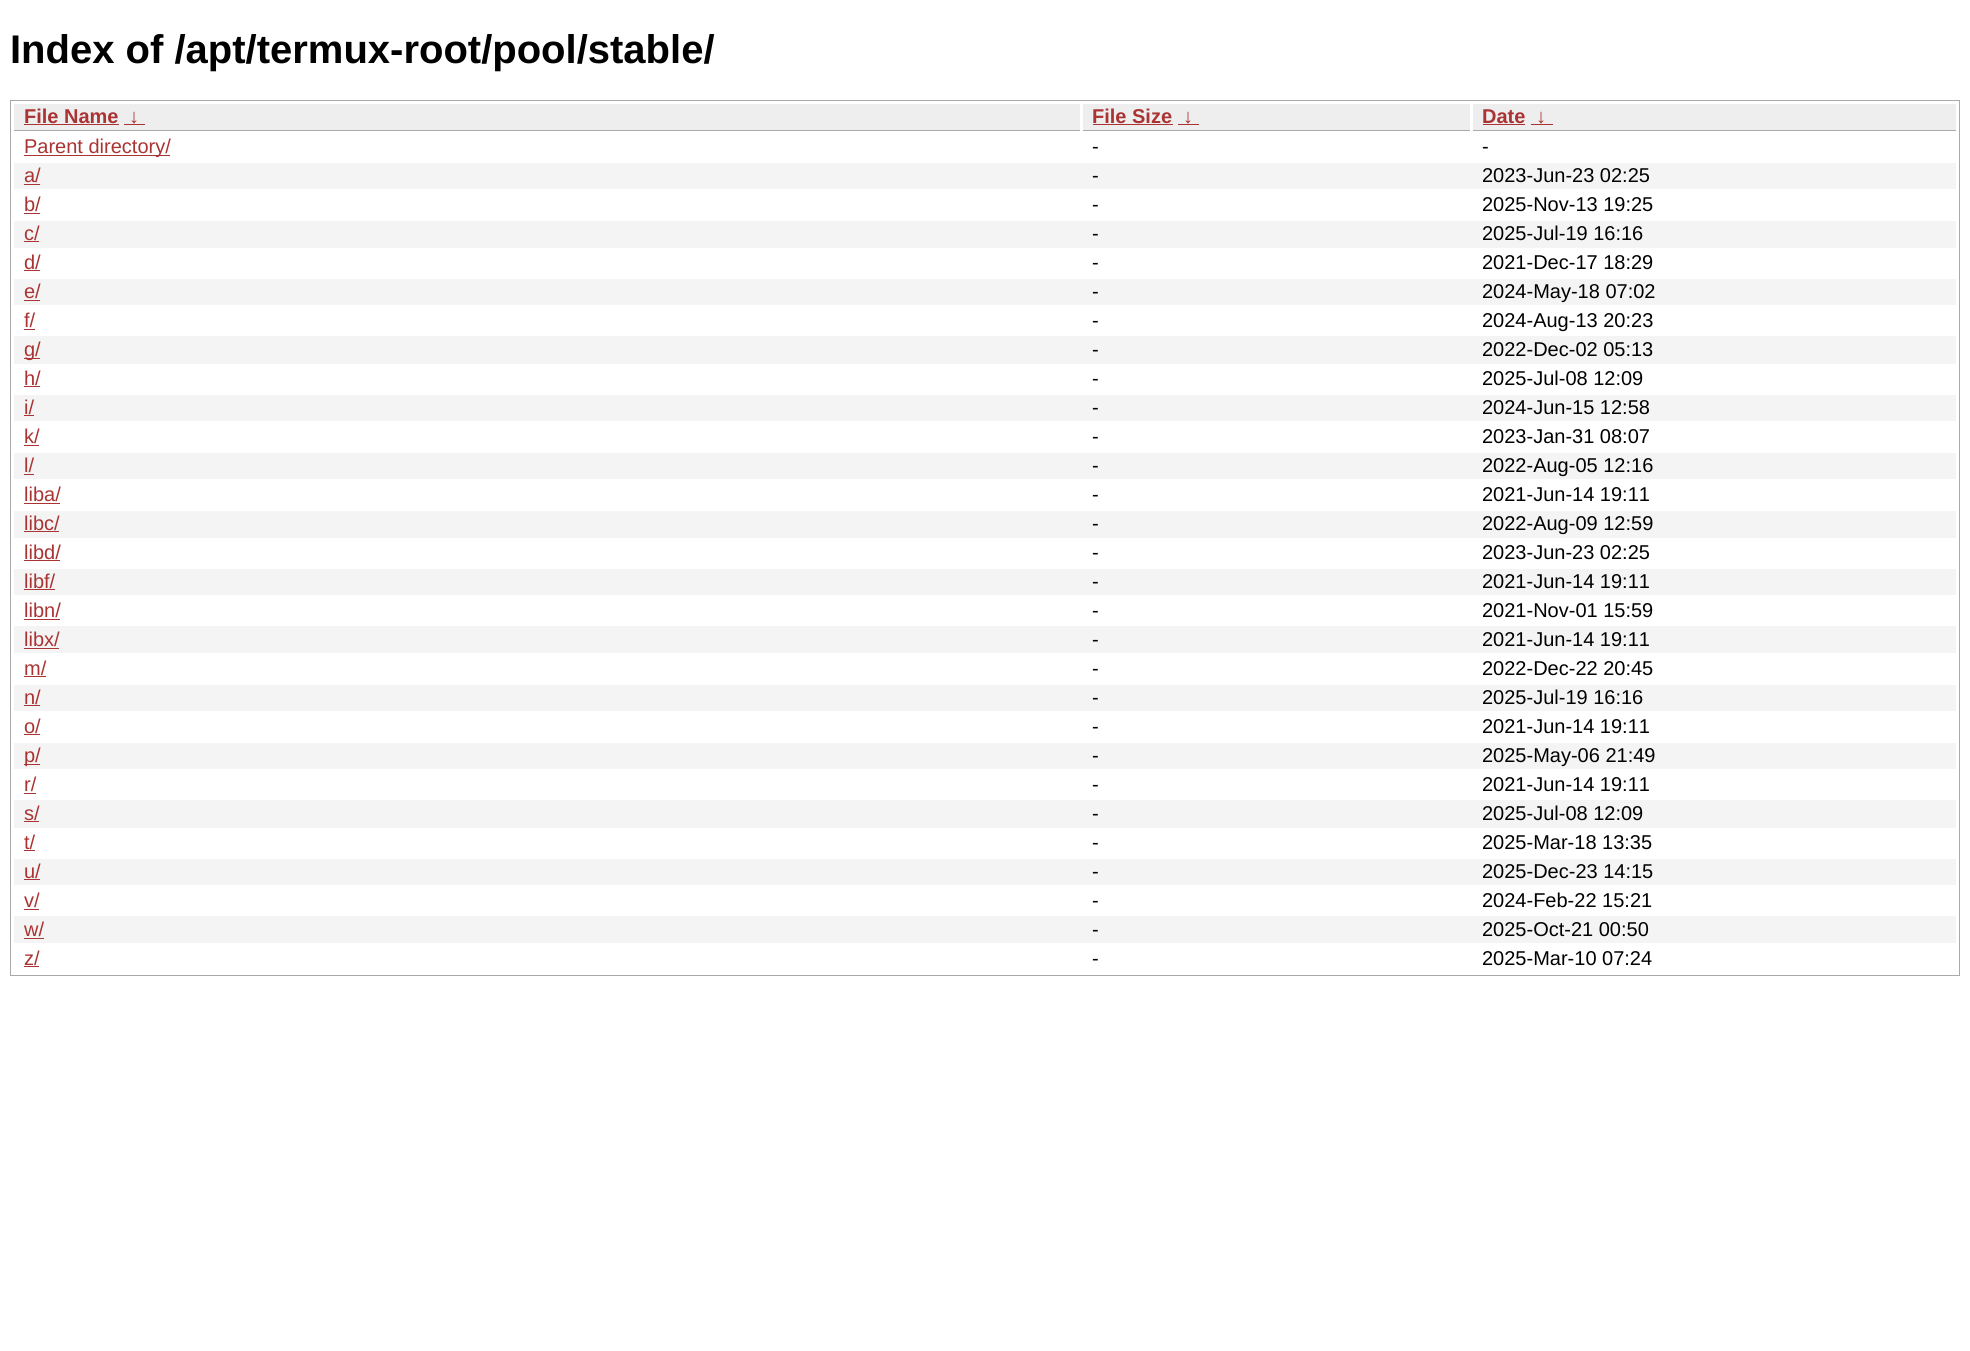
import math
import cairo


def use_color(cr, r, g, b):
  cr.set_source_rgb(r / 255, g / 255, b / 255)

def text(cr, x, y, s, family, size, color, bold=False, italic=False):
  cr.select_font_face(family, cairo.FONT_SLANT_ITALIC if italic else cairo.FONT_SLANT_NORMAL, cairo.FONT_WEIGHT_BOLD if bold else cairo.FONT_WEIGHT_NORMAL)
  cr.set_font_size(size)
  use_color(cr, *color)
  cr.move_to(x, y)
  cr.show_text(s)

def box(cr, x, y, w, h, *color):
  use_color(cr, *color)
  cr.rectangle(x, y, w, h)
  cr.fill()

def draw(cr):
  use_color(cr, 255, 255, 255)
  cr.paint()
  cr.rectangle(10.5, 100.5, 1949, 875)
  use_color(cr, 170, 170, 170)
  cr.set_line_width(1)
  cr.stroke()
  box(cr, 14, 104, 1066, 26, 238, 238, 238)
  box(cr, 14, 130, 1066, 1, 170, 170, 170)
  box(cr, 24, 124, 95, 1, 170, 51, 51)
  box(cr, 124, 124, 21, 1, 170, 51, 51)
  box(cr, 1083, 104, 387, 26, 238, 238, 238)
  box(cr, 1083, 130, 387, 1, 170, 170, 170)
  box(cr, 1093, 124, 80, 1, 170, 51, 51)
  box(cr, 1178, 124, 21, 1, 170, 51, 51)
  box(cr, 1473, 104, 483, 26, 238, 238, 238)
  box(cr, 1473, 130, 483, 1, 170, 170, 170)
  box(cr, 1483, 124, 42, 1, 170, 51, 51)
  box(cr, 1531, 124, 22, 1, 170, 51, 51)
  box(cr, 24, 155, 146, 1, 170, 51, 51)
  box(cr, 14, 163, 1942, 26, 244, 244, 244)
  box(cr, 24, 184, 16, 1, 170, 51, 51)
  box(cr, 24, 213, 16, 1, 170, 51, 51)
  box(cr, 14, 221, 1942, 27, 244, 244, 244)
  box(cr, 24, 241, 15, 1, 170, 51, 51)
  box(cr, 24, 270, 16, 1, 170, 51, 51)
  box(cr, 14, 279, 1942, 26, 244, 244, 244)
  box(cr, 24, 300, 16, 1, 170, 51, 51)
  box(cr, 24, 329, 11, 1, 170, 51, 51)
  box(cr, 14, 336, 1942, 28, 244, 244, 244)
  box(cr, 24, 358, 16, 1, 170, 51, 51)
  box(cr, 24, 386, 16, 1, 170, 51, 51)
  box(cr, 14, 395, 1942, 26, 244, 244, 244)
  box(cr, 24, 415, 10, 1, 170, 51, 51)
  box(cr, 24, 445, 15, 1, 170, 51, 51)
  box(cr, 14, 453, 1942, 26, 244, 244, 244)
  box(cr, 24, 474, 10, 1, 170, 51, 51)
  box(cr, 24, 503, 36, 1, 170, 51, 51)
  box(cr, 14, 511, 1942, 27, 244, 244, 244)
  box(cr, 24, 531, 35, 1, 170, 51, 51)
  box(cr, 24, 560, 36, 1, 170, 51, 51)
  box(cr, 14, 569, 1942, 26, 244, 244, 244)
  box(cr, 24, 589, 31, 1, 170, 51, 51)
  box(cr, 24, 619, 36, 1, 170, 51, 51)
  box(cr, 14, 626, 1942, 27, 244, 244, 244)
  box(cr, 24, 648, 35, 1, 170, 51, 51)
  box(cr, 24, 676, 22, 1, 170, 51, 51)
  box(cr, 14, 685, 1942, 26, 244, 244, 244)
  box(cr, 24, 705, 16, 1, 170, 51, 51)
  box(cr, 24, 734, 16, 1, 170, 51, 51)
  box(cr, 14, 743, 1942, 26, 244, 244, 244)
  box(cr, 24, 764, 16, 1, 170, 51, 51)
  box(cr, 24, 793, 12, 1, 170, 51, 51)
  box(cr, 14, 800, 1942, 28, 244, 244, 244)
  box(cr, 24, 821, 15, 1, 170, 51, 51)
  box(cr, 24, 850, 11, 1, 170, 51, 51)
  box(cr, 14, 859, 1942, 26, 244, 244, 244)
  box(cr, 24, 879, 16, 1, 170, 51, 51)
  box(cr, 24, 909, 15, 1, 170, 51, 51)
  box(cr, 14, 916, 1942, 27, 244, 244, 244)
  box(cr, 24, 938, 20, 1, 170, 51, 51)
  box(cr, 24, 966, 15, 1, 170, 51, 51)
  text(cr, 10, 63, "Index of /apt/termux-root/pool/stable/", "Liberation Sans", 40, (0, 0, 0), bold=True)
  text(cr, 24, 123, "File Name", "Liberation Sans", 20, (170, 51, 51), bold=True)
  text(cr, 129, 123, "↓", "Liberation Sans", 20, (170, 51, 51), bold=True)
  text(cr, 1092, 123, "File Size", "Liberation Sans", 20, (170, 51, 51), bold=True)
  text(cr, 1183, 123, "↓", "Liberation Sans", 20, (170, 51, 51), bold=True)
  text(cr, 1482, 123, "Date", "Liberation Sans", 20, (170, 51, 51), bold=True)
  text(cr, 1536, 123, "↓", "Liberation Sans", 20, (170, 51, 51), bold=True)
  text(cr, 24, 153, "Parent directory/", "Liberation Sans", 20, (170, 51, 51))
  text(cr, 1092, 153, "-", "Liberation Sans", 20, (0, 0, 0))
  text(cr, 1482, 153, "-", "Liberation Sans", 20, (0, 0, 0))
  text(cr, 24, 182, "a/", "Liberation Sans", 20, (170, 51, 51))
  text(cr, 1092, 182, "-", "Liberation Sans", 20, (0, 0, 0))
  text(cr, 1482, 182, "2023-Jun-23 02:25", "Liberation Sans", 20, (0, 0, 0))
  text(cr, 24, 211, "b/", "Liberation Sans", 20, (170, 51, 51))
  text(cr, 1092, 211, "-", "Liberation Sans", 20, (0, 0, 0))
  text(cr, 1482, 211, "2025-Nov-13 19:25", "Liberation Sans", 20, (0, 0, 0))
  text(cr, 24, 240, "c/", "Liberation Sans", 20, (170, 51, 51))
  text(cr, 1092, 240, "-", "Liberation Sans", 20, (0, 0, 0))
  text(cr, 1482, 240, "2025-Jul-19 16:16", "Liberation Sans", 20, (0, 0, 0))
  text(cr, 24, 269, "d/", "Liberation Sans", 20, (170, 51, 51))
  text(cr, 1092, 269, "-", "Liberation Sans", 20, (0, 0, 0))
  text(cr, 1482, 269, "2021-Dec-17 18:29", "Liberation Sans", 20, (0, 0, 0))
  text(cr, 24, 298, "e/", "Liberation Sans", 20, (170, 51, 51))
  text(cr, 1092, 298, "-", "Liberation Sans", 20, (0, 0, 0))
  text(cr, 1482, 298, "2024-May-18 07:02", "Liberation Sans", 20, (0, 0, 0))
  text(cr, 24, 327, "f/", "Liberation Sans", 20, (170, 51, 51))
  text(cr, 1092, 327, "-", "Liberation Sans", 20, (0, 0, 0))
  text(cr, 1482, 327, "2024-Aug-13 20:23", "Liberation Sans", 20, (0, 0, 0))
  text(cr, 24, 356, "g/", "Liberation Sans", 20, (170, 51, 51))
  text(cr, 1092, 356, "-", "Liberation Sans", 20, (0, 0, 0))
  text(cr, 1482, 356, "2022-Dec-02 05:13", "Liberation Sans", 20, (0, 0, 0))
  text(cr, 24, 385, "h/", "Liberation Sans", 20, (170, 51, 51))
  text(cr, 1092, 385, "-", "Liberation Sans", 20, (0, 0, 0))
  text(cr, 1482, 385, "2025-Jul-08 12:09", "Liberation Sans", 20, (0, 0, 0))
  text(cr, 24, 414, "i/", "Liberation Sans", 20, (170, 51, 51))
  text(cr, 1092, 414, "-", "Liberation Sans", 20, (0, 0, 0))
  text(cr, 1482, 414, "2024-Jun-15 12:58", "Liberation Sans", 20, (0, 0, 0))
  text(cr, 24, 443, "k/", "Liberation Sans", 20, (170, 51, 51))
  text(cr, 1092, 443, "-", "Liberation Sans", 20, (0, 0, 0))
  text(cr, 1482, 443, "2023-Jan-31 08:07", "Liberation Sans", 20, (0, 0, 0))
  text(cr, 24, 472, "l/", "Liberation Sans", 20, (170, 51, 51))
  text(cr, 1092, 472, "-", "Liberation Sans", 20, (0, 0, 0))
  text(cr, 1482, 472, "2022-Aug-05 12:16", "Liberation Sans", 20, (0, 0, 0))
  text(cr, 24, 501, "liba/", "Liberation Sans", 20, (170, 51, 51))
  text(cr, 1092, 501, "-", "Liberation Sans", 20, (0, 0, 0))
  text(cr, 1482, 501, "2021-Jun-14 19:11", "Liberation Sans", 20, (0, 0, 0))
  text(cr, 24, 530, "libc/", "Liberation Sans", 20, (170, 51, 51))
  text(cr, 1092, 530, "-", "Liberation Sans", 20, (0, 0, 0))
  text(cr, 1482, 530, "2022-Aug-09 12:59", "Liberation Sans", 20, (0, 0, 0))
  text(cr, 24, 559, "libd/", "Liberation Sans", 20, (170, 51, 51))
  text(cr, 1092, 559, "-", "Liberation Sans", 20, (0, 0, 0))
  text(cr, 1482, 559, "2023-Jun-23 02:25", "Liberation Sans", 20, (0, 0, 0))
  text(cr, 24, 588, "libf/", "Liberation Sans", 20, (170, 51, 51))
  text(cr, 1092, 588, "-", "Liberation Sans", 20, (0, 0, 0))
  text(cr, 1482, 588, "2021-Jun-14 19:11", "Liberation Sans", 20, (0, 0, 0))
  text(cr, 24, 617, "libn/", "Liberation Sans", 20, (170, 51, 51))
  text(cr, 1092, 617, "-", "Liberation Sans", 20, (0, 0, 0))
  text(cr, 1482, 617, "2021-Nov-01 15:59", "Liberation Sans", 20, (0, 0, 0))
  text(cr, 24, 646, "libx/", "Liberation Sans", 20, (170, 51, 51))
  text(cr, 1092, 646, "-", "Liberation Sans", 20, (0, 0, 0))
  text(cr, 1482, 646, "2021-Jun-14 19:11", "Liberation Sans", 20, (0, 0, 0))
  text(cr, 24, 675, "m/", "Liberation Sans", 20, (170, 51, 51))
  text(cr, 1092, 675, "-", "Liberation Sans", 20, (0, 0, 0))
  text(cr, 1482, 675, "2022-Dec-22 20:45", "Liberation Sans", 20, (0, 0, 0))
  text(cr, 24, 704, "n/", "Liberation Sans", 20, (170, 51, 51))
  text(cr, 1092, 704, "-", "Liberation Sans", 20, (0, 0, 0))
  text(cr, 1482, 704, "2025-Jul-19 16:16", "Liberation Sans", 20, (0, 0, 0))
  text(cr, 24, 733, "o/", "Liberation Sans", 20, (170, 51, 51))
  text(cr, 1092, 733, "-", "Liberation Sans", 20, (0, 0, 0))
  text(cr, 1482, 733, "2021-Jun-14 19:11", "Liberation Sans", 20, (0, 0, 0))
  text(cr, 24, 762, "p/", "Liberation Sans", 20, (170, 51, 51))
  text(cr, 1092, 762, "-", "Liberation Sans", 20, (0, 0, 0))
  text(cr, 1482, 762, "2025-May-06 21:49", "Liberation Sans", 20, (0, 0, 0))
  text(cr, 24, 791, "r/", "Liberation Sans", 20, (170, 51, 51))
  text(cr, 1092, 791, "-", "Liberation Sans", 20, (0, 0, 0))
  text(cr, 1482, 791, "2021-Jun-14 19:11", "Liberation Sans", 20, (0, 0, 0))
  text(cr, 24, 820, "s/", "Liberation Sans", 20, (170, 51, 51))
  text(cr, 1092, 820, "-", "Liberation Sans", 20, (0, 0, 0))
  text(cr, 1482, 820, "2025-Jul-08 12:09", "Liberation Sans", 20, (0, 0, 0))
  text(cr, 24, 849, "t/", "Liberation Sans", 20, (170, 51, 51))
  text(cr, 1092, 849, "-", "Liberation Sans", 20, (0, 0, 0))
  text(cr, 1482, 849, "2025-Mar-18 13:35", "Liberation Sans", 20, (0, 0, 0))
  text(cr, 24, 878, "u/", "Liberation Sans", 20, (170, 51, 51))
  text(cr, 1092, 878, "-", "Liberation Sans", 20, (0, 0, 0))
  text(cr, 1482, 878, "2025-Dec-23 14:15", "Liberation Sans", 20, (0, 0, 0))
  text(cr, 24, 907, "v/", "Liberation Sans", 20, (170, 51, 51))
  text(cr, 1092, 907, "-", "Liberation Sans", 20, (0, 0, 0))
  text(cr, 1482, 907, "2024-Feb-22 15:21", "Liberation Sans", 20, (0, 0, 0))
  text(cr, 24, 936, "w/", "Liberation Sans", 20, (170, 51, 51))
  text(cr, 1092, 936, "-", "Liberation Sans", 20, (0, 0, 0))
  text(cr, 1482, 936, "2025-Oct-21 00:50", "Liberation Sans", 20, (0, 0, 0))
  text(cr, 24, 965, "z/", "Liberation Sans", 20, (170, 51, 51))
  text(cr, 1092, 965, "-", "Liberation Sans", 20, (0, 0, 0))
  text(cr, 1482, 965, "2025-Mar-10 07:24", "Liberation Sans", 20, (0, 0, 0))


surface = cairo.ImageSurface(cairo.FORMAT_RGB24, 1970, 1351)
cr = cairo.Context(surface)
options = cairo.FontOptions()
options.set_hint_metrics(cairo.HINT_METRICS_OFF)
options.set_hint_style(cairo.HINT_STYLE_NONE)
cr.set_font_options(options)
cr.set_miter_limit(4)
draw(cr)
surface.write_to_png("out.png")
